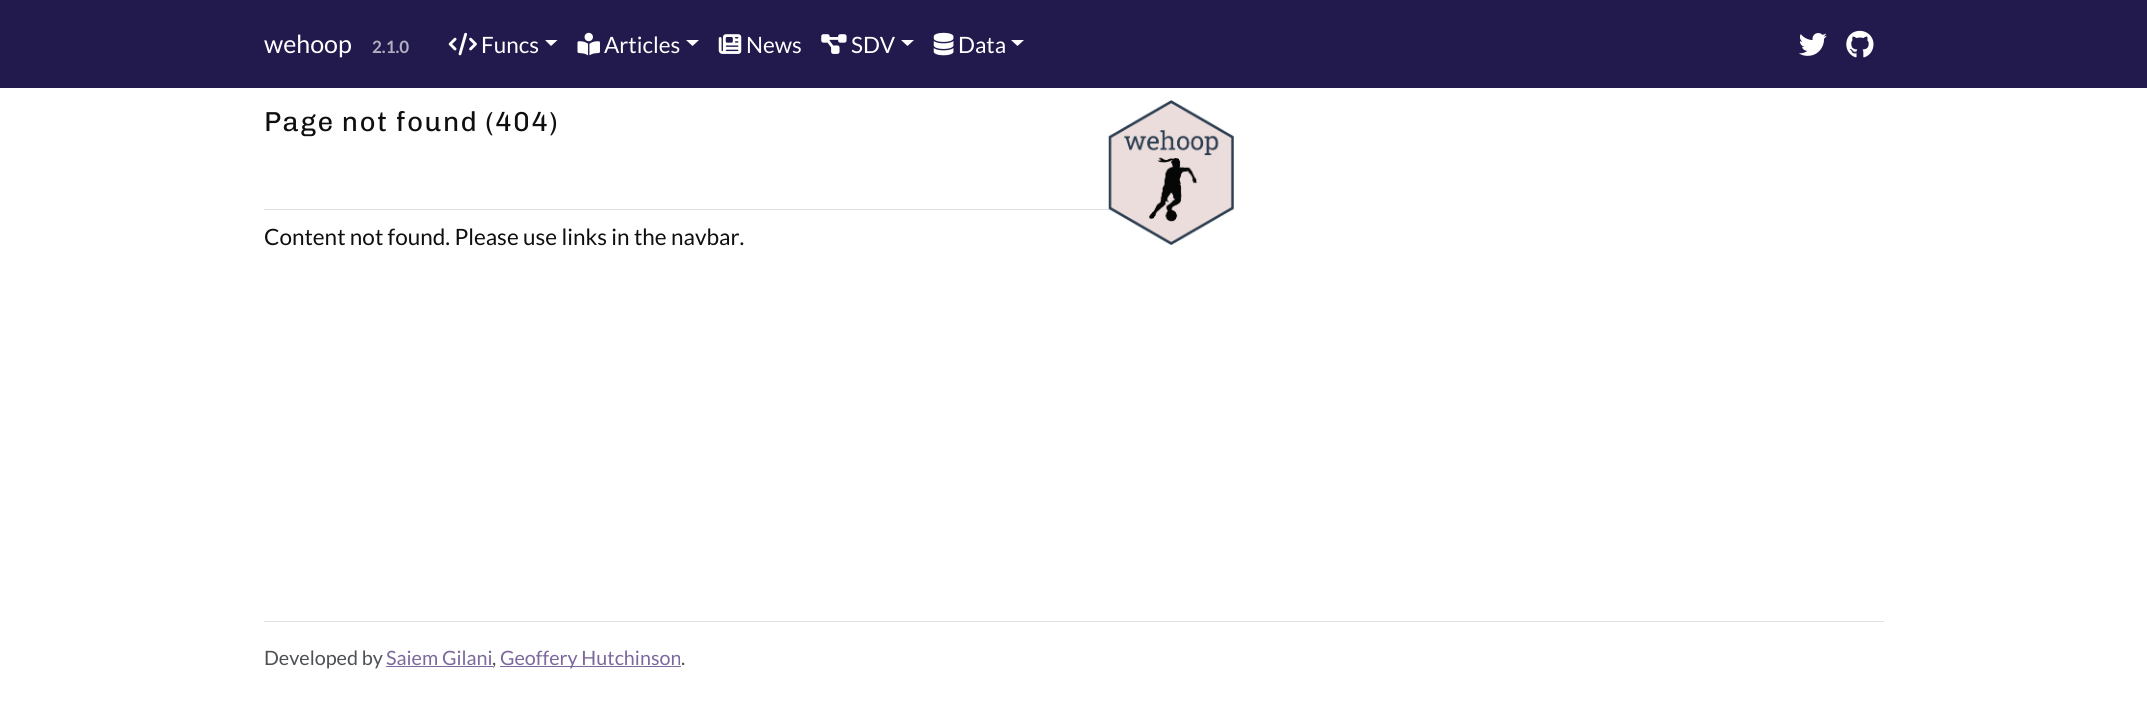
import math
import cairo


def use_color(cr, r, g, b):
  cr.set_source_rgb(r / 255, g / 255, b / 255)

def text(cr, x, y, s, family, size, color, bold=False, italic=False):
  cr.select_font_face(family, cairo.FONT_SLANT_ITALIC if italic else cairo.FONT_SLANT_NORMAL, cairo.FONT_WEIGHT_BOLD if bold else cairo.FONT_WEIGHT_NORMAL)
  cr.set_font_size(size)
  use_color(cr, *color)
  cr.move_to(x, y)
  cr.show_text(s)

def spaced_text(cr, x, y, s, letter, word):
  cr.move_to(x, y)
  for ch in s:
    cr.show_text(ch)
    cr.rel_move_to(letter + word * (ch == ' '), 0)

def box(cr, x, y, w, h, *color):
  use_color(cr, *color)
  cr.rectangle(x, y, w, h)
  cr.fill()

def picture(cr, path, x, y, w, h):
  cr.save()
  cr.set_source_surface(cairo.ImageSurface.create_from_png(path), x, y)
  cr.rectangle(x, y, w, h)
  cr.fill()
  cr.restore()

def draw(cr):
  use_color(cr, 255, 255, 255)
  cr.paint()
  box(cr, 0, 0, 2147, 88, 34, 26, 77)
  picture(cr, "img_01.png", 448, 32, 29, 24)
  use_color(cr, 255, 255, 255)
  cr.new_path()
  cr.move_to(545, 40)
  cr.line_to(557.5, 40)
  cr.line_to(551, 46)
  cr.close_path()
  cr.fill()
  picture(cr, "img_02.png", 577, 32, 23, 24)
  cr.new_path()
  cr.move_to(686, 40)
  cr.line_to(699, 40)
  cr.line_to(692.5, 46)
  cr.close_path()
  cr.fill()
  picture(cr, "img_03.png", 718, 34, 24, 20)
  picture(cr, "img_04.png", 821, 34, 26, 20)
  cr.new_path()
  cr.move_to(901, 40)
  cr.line_to(914, 40)
  cr.line_to(907.5, 46)
  cr.close_path()
  cr.fill()
  picture(cr, "img_05.png", 933, 32, 21, 24)
  cr.new_path()
  cr.move_to(1011, 40)
  cr.line_to(1024, 40)
  cr.line_to(1017.5, 46)
  cr.close_path()
  cr.fill()
  picture(cr, "img_06.png", 1799, 33, 28, 23)
  picture(cr, "img_07.png", 1846, 30, 28, 28)
  box(cr, 264, 209, 970, 1, 222, 226, 230)
  picture(cr, "img_08.png", 1108, 100, 126, 145)
  box(cr, 264, 621, 1620, 1, 222, 226, 230)
  box(cr, 386, 666, 107, 1, 124, 104, 156)
  box(cr, 500, 666, 181, 1, 124, 104, 156)
  text(cr, 264, 53, "wehoop", "Lato", 25, (255, 255, 255))
  text(cr, 372, 53, "2.1.0", "Lato", 17, (175, 176, 192), bold=True)
  text(cr, 481, 53, "Funcs", "Lato", 22.5, (255, 255, 255))
  text(cr, 604, 53, "Articles", "Lato", 22.5, (255, 255, 255))
  text(cr, 746, 53, "News", "Lato", 22.5, (255, 255, 255))
  text(cr, 851, 53, "SDV", "Lato", 22.5, (255, 255, 255))
  text(cr, 958, 53, "Data", "Lato", 22.5, (255, 255, 255))
  cr.select_font_face("Chivo Medium")
  cr.set_font_size(27.5)
  use_color(cr, 15, 15, 15)
  spaced_text(cr, 264, 131, "Page not found (404)", 1.25, 0)
  text(cr, 264, 245, "Content not found. Please use links in the navbar.", "Lato", 22.5, (15, 15, 15))
  text(cr, 264, 665, "Developed by", "Lato", 19.75, (77, 81, 84))
  text(cr, 386, 665, "Saiem Gilani", "Lato", 19.75, (124, 104, 156))
  text(cr, 492, 665, ",", "Lato", 19.75, (77, 81, 84))
  text(cr, 500, 665, "Geoffery Hutchinson", "Lato", 19.75, (124, 104, 156))
  text(cr, 681, 665, ".", "Lato", 19.75, (77, 81, 84))


surface = cairo.ImageSurface(cairo.FORMAT_RGB24, 2147, 712)
cr = cairo.Context(surface)
options = cairo.FontOptions()
options.set_hint_metrics(cairo.HINT_METRICS_OFF)
options.set_hint_style(cairo.HINT_STYLE_NONE)
cr.set_font_options(options)
cr.set_miter_limit(4)
draw(cr)
surface.write_to_png("out.png")
